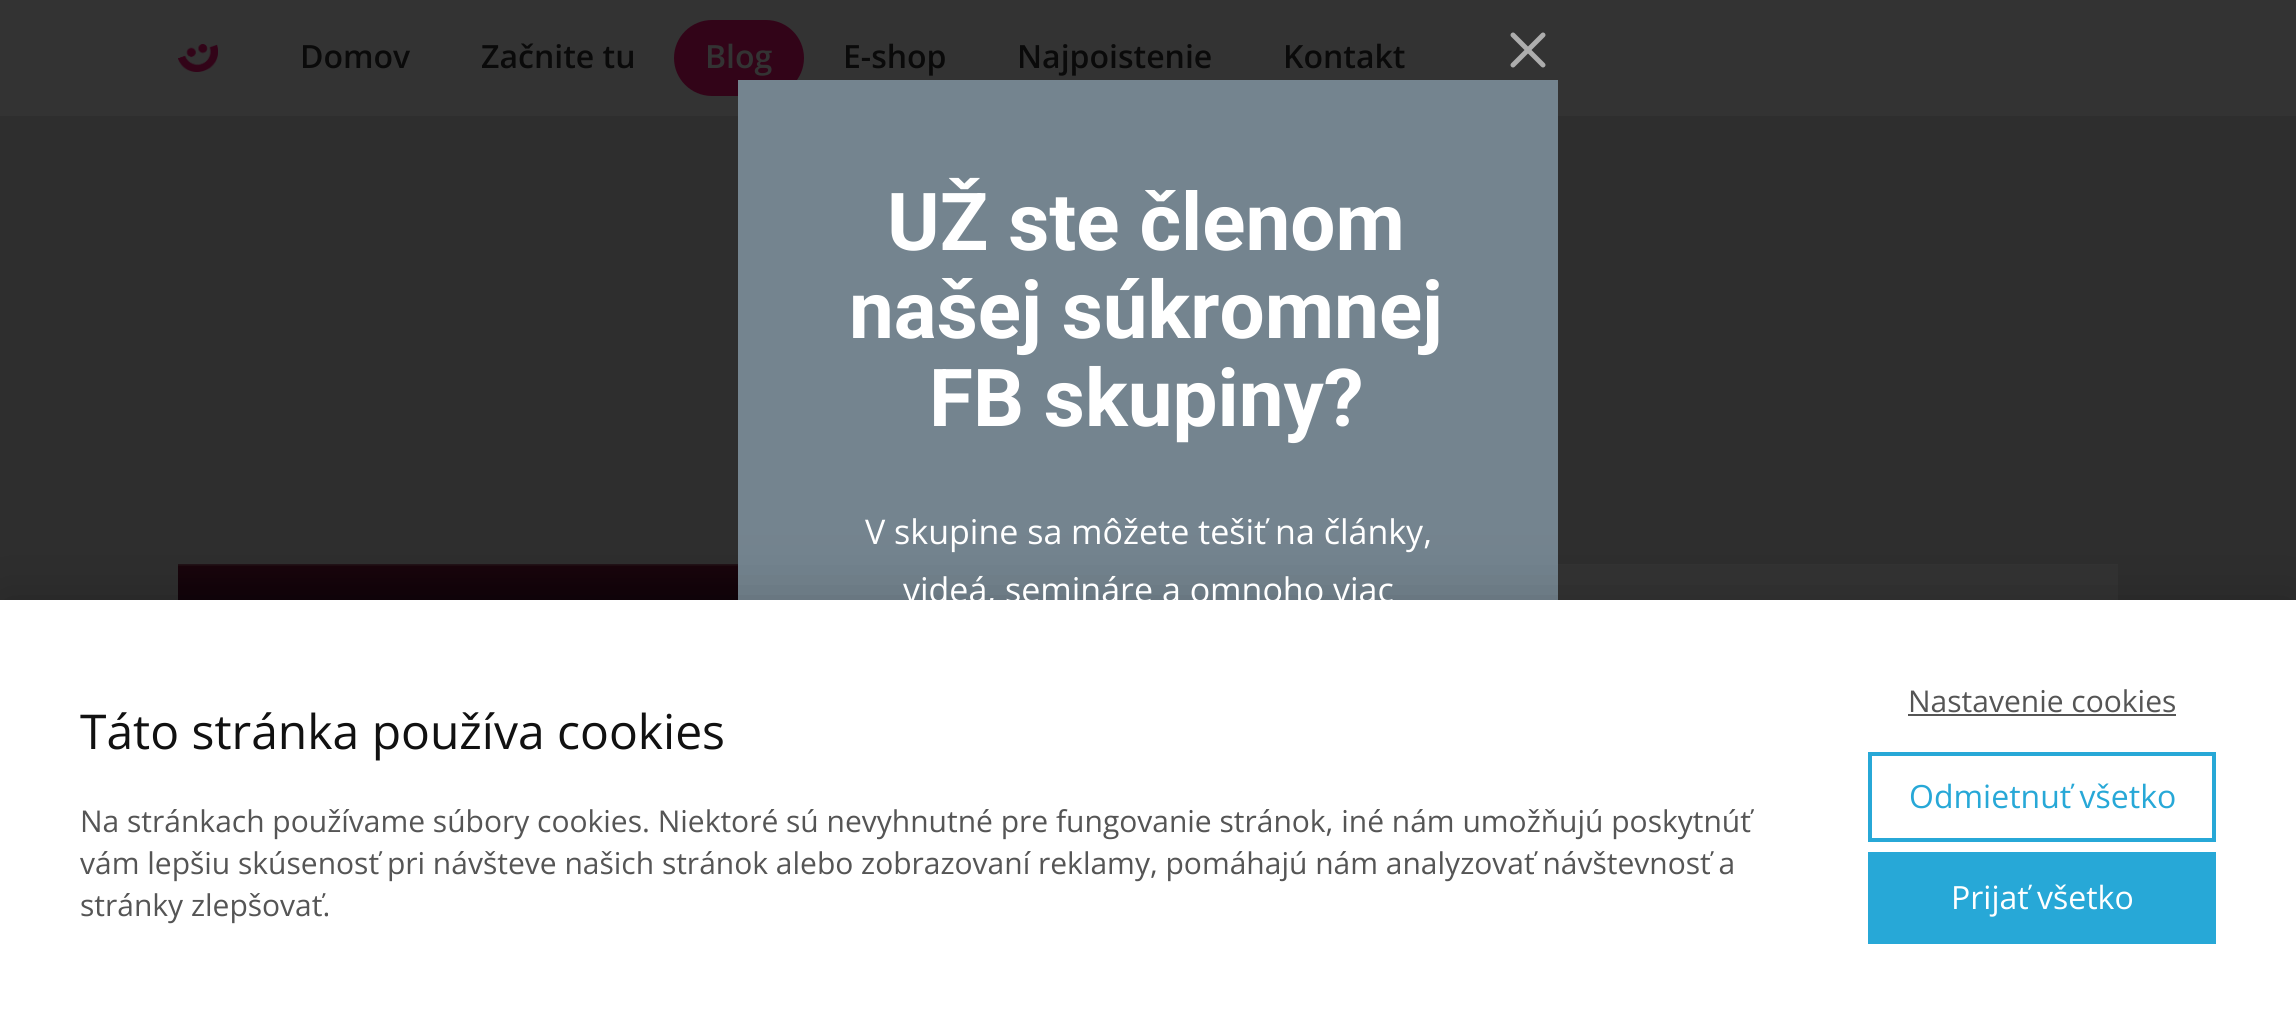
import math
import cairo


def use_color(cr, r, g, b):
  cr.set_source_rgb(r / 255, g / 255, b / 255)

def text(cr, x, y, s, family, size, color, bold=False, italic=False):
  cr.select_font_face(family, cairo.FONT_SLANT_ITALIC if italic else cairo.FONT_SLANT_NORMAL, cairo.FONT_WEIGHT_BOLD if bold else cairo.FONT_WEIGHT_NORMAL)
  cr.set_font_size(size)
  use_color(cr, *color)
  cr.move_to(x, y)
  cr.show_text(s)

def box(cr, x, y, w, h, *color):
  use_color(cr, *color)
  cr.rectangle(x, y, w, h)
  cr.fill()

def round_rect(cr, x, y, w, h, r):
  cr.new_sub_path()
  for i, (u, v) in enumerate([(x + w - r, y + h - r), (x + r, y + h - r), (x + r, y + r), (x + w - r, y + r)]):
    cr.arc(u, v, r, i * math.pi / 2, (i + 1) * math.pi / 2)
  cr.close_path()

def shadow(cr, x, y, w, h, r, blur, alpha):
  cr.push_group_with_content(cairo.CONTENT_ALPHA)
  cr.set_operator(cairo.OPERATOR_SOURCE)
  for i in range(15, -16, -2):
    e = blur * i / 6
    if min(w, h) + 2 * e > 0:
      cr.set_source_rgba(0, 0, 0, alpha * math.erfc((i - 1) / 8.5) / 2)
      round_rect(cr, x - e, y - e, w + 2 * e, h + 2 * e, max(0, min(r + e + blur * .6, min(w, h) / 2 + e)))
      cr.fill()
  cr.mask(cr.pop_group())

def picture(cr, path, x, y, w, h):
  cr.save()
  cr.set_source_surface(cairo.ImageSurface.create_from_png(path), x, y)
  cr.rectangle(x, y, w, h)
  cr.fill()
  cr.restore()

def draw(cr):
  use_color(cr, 46, 46, 46)
  cr.paint()
  box(cr, 0, 0, 2296, 116, 51, 51, 51)
  picture(cr, "img_01.png", 178, 44, 40, 28)
  use_color(cr, 50, 4, 24)
  round_rect(cr, 674, 20, 130, 76, 38)
  cr.fill()
  picture(cr, "img_02.png", 178, 564, 560, 36)
  box(cr, 1558, 564, 560, 36, 51, 51, 51)
  box(cr, 738, 80, 820, 520, 116, 132, 143)
  use_color(cr, 0, 0, 0)
  shadow(cr, 0, 600, 2296, 424, 0, 30, 0.2)
  box(cr, 0, 600, 2296, 424, 255, 255, 255)
  box(cr, 1908, 714, 268, 2, 85, 85, 85)
  cr.rectangle(1870, 754, 344, 86)
  use_color(cr, 39, 168, 215)
  cr.set_line_width(4)
  cr.stroke()
  box(cr, 1868, 852, 348, 92, 39, 168, 215)
  picture(cr, "img_03.png", 1510, 32, 36, 36)
  text(cr, 300, 68, "Domov", "Open Sans SemiBold", 32, (10, 10, 10))
  text(cr, 481, 68, "Začnite tu", "Open Sans SemiBold", 32, (10, 10, 10))
  text(cr, 705, 68, "Blog", "Open Sans SemiBold", 32, (51, 51, 51))
  text(cr, 843, 68, "E-shop", "Open Sans SemiBold", 32, (10, 10, 10))
  text(cr, 1017, 68, "Najpoistenie", "Open Sans SemiBold", 32, (10, 10, 10))
  text(cr, 1283, 68, "Kontakt", "Open Sans SemiBold", 32, (10, 10, 10))
  text(cr, 80, 749, "Táto stránka používa cookies", "Open Sans", 48, (17, 17, 17))
  text(cr, 80, 832, "Na stránkach používame súbory cookies. Niektoré sú nevyhnutné pre fungovanie stránok, iné nám umožňujú poskytnúť", "Open Sans", 30, (85, 85, 85))
  text(cr, 80, 874, "vám lepšiu skúsenosť pri návšteve našich stránok alebo zobrazovaní reklamy, pomáhajú nám analyzovať návštevnosť a", "Open Sans", 30, (85, 85, 85))
  text(cr, 80, 916, "stránky zlepšovať.", "Open Sans", 30, (85, 85, 85))
  text(cr, 1908, 712, "Nastavenie cookies", "Open Sans", 30, (85, 85, 85))
  text(cr, 1909, 808, "Odmietnuť všetko", "Open Sans", 32, (39, 168, 215))
  text(cr, 1951, 909, "Prijať všetko", "Open Sans", 32, (255, 255, 255))
  text(cr, 887, 250, "UŽ ste členom", "Roboto", 80, (255, 255, 255), bold=True)
  text(cr, 849, 338, "našej súkromnej", "Roboto", 80, (255, 255, 255), bold=True)
  text(cr, 929, 426, "FB skupiny?", "Roboto", 80, (255, 255, 255), bold=True)
  text(cr, 865, 544, "V skupine sa môžete tešiť na články,", "Open Sans", 34, (255, 255, 255))
  text(cr, 903, 602, "videá, semináre a omnoho viac", "Open Sans", 34, (255, 255, 255))


surface = cairo.ImageSurface(cairo.FORMAT_RGB24, 2296, 1024)
cr = cairo.Context(surface)
options = cairo.FontOptions()
options.set_hint_metrics(cairo.HINT_METRICS_OFF)
options.set_hint_style(cairo.HINT_STYLE_NONE)
cr.set_font_options(options)
cr.set_miter_limit(4)
draw(cr)
surface.write_to_png("out.png")
